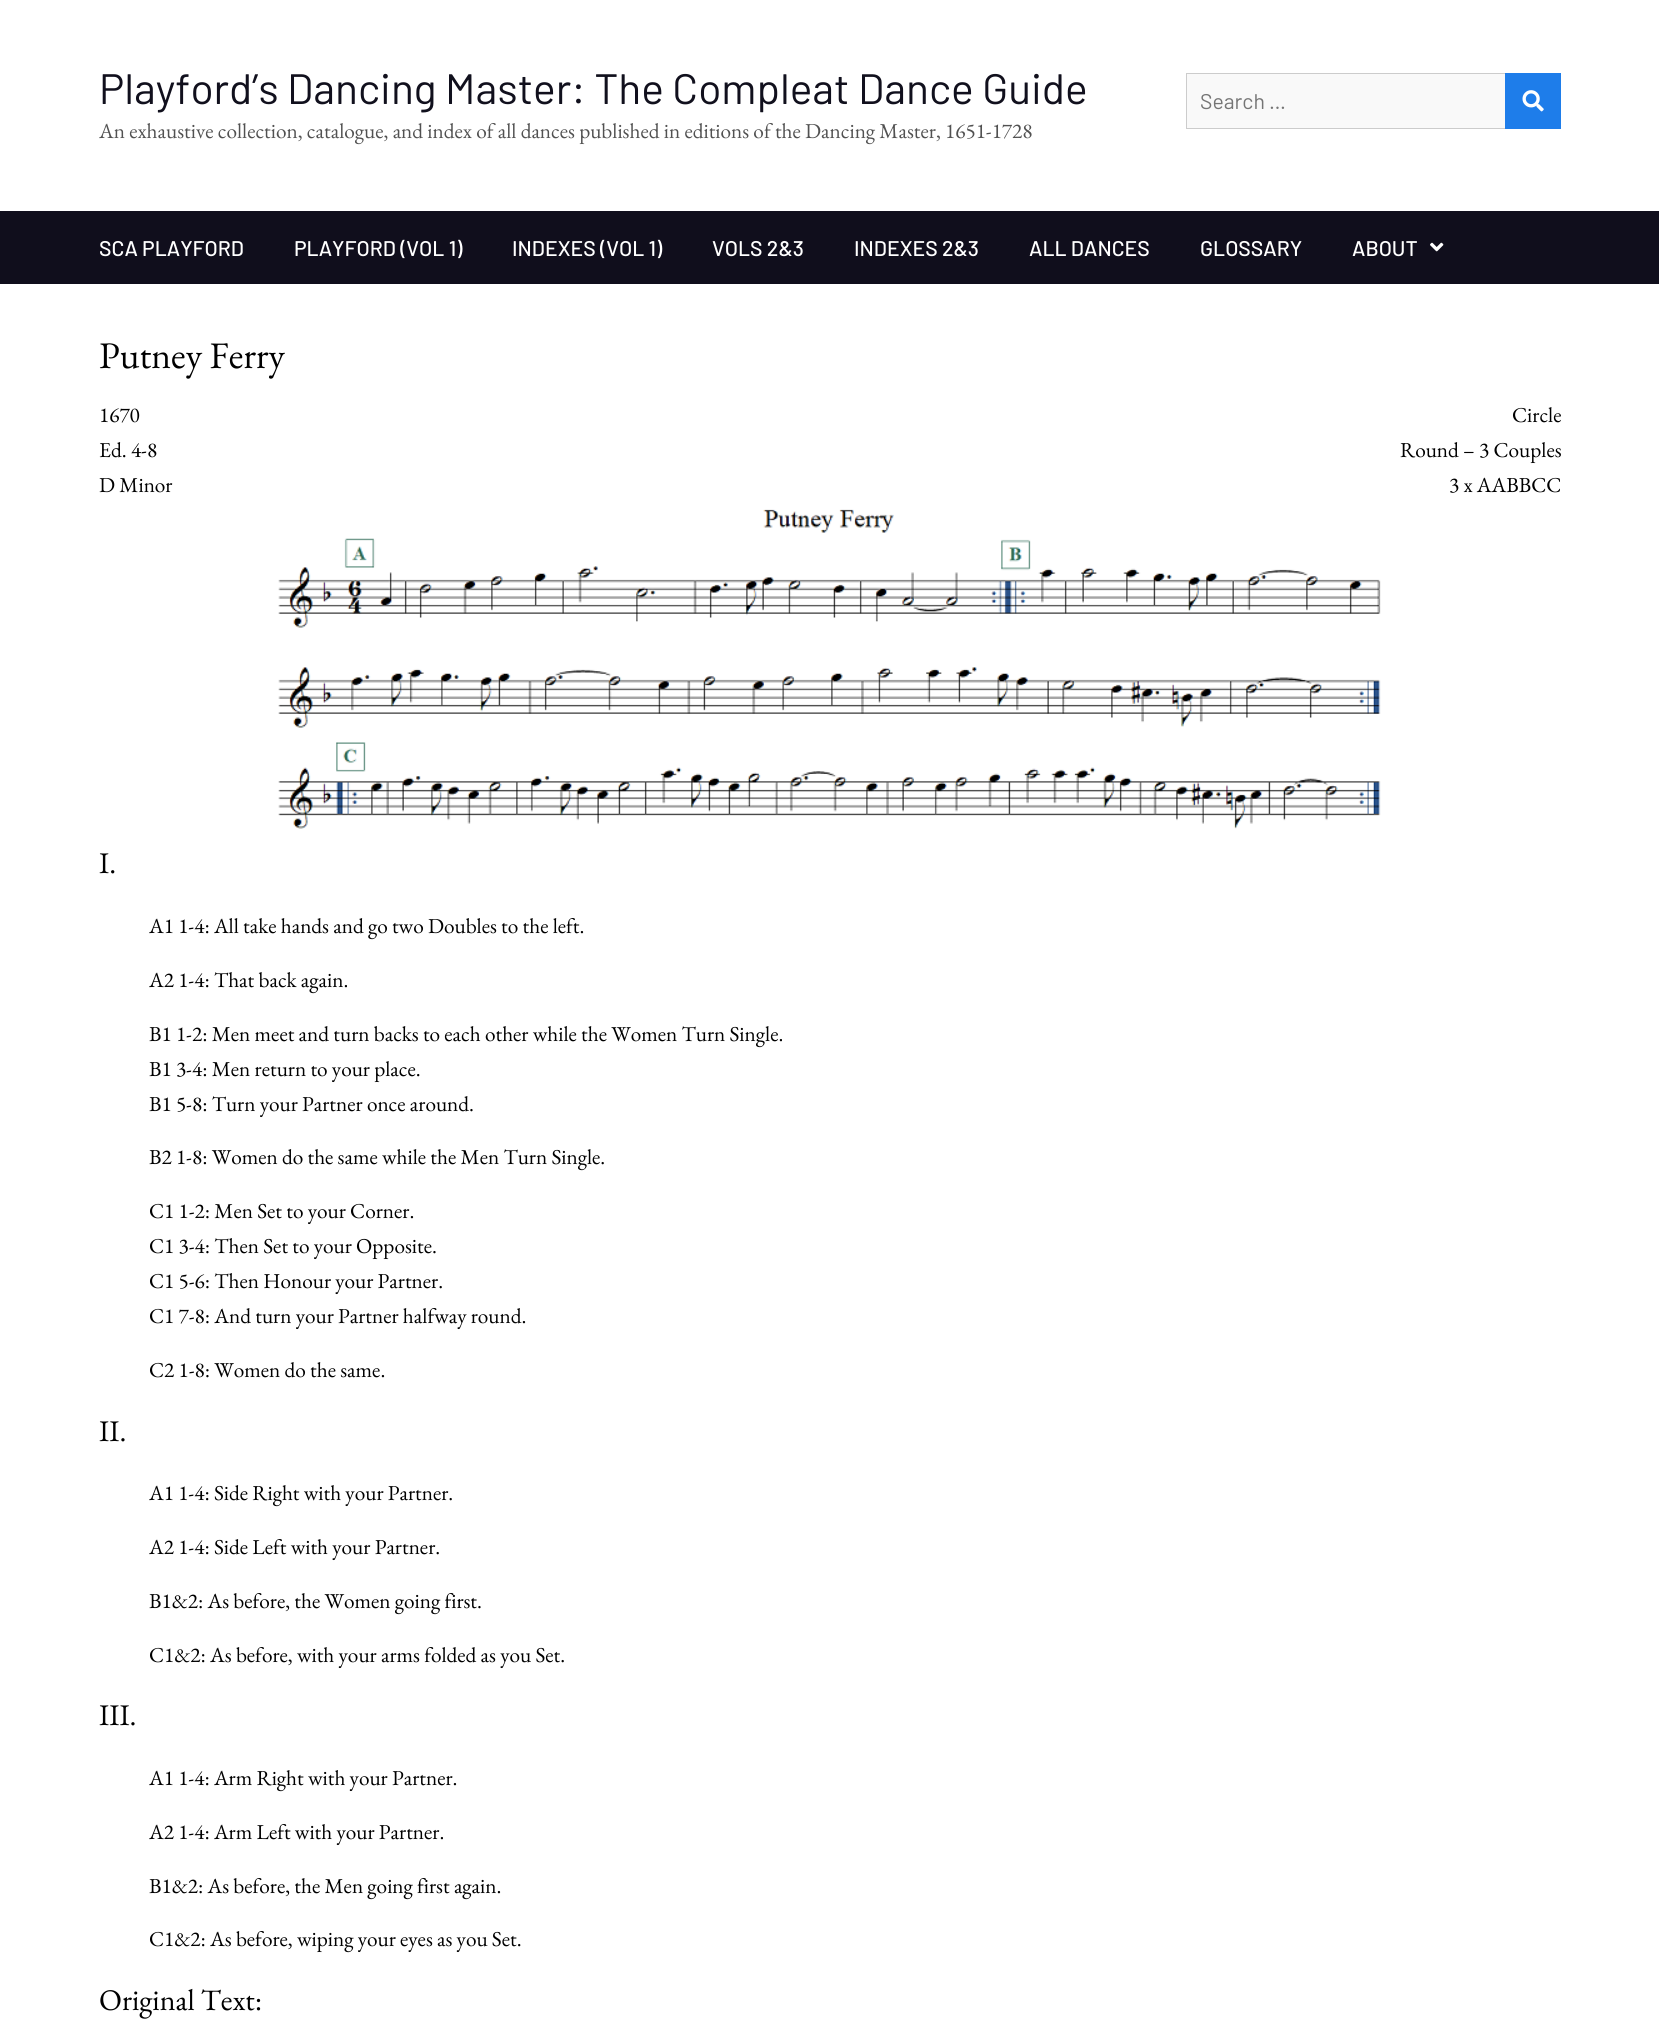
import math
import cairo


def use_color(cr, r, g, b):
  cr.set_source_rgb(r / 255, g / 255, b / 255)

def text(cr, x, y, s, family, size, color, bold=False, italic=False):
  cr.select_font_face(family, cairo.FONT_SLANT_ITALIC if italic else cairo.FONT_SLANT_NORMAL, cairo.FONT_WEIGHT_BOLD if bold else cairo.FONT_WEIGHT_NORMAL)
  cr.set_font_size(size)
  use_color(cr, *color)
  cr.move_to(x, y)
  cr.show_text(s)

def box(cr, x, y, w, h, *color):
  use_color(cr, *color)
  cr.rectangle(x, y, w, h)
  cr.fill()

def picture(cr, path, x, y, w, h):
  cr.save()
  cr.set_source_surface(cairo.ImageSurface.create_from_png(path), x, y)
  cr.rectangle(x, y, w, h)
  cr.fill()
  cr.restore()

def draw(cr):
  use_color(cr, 255, 255, 255)
  cr.paint()
  box(cr, 1187, 74, 318, 54, 249, 249, 249)
  cr.rectangle(1186.5, 73.5, 374, 55)
  use_color(cr, 204, 204, 204)
  cr.set_line_width(1)
  cr.stroke()
  box(cr, 1505, 73, 56, 56, 30, 125, 234)
  picture(cr, "img_01.png", 1522, 90, 22, 22)
  box(cr, 0, 211, 1659, 73, 16, 14, 28)
  picture(cr, "img_02.png", 1430, 242, 14, 10)
  picture(cr, "img_03.png", 278, 509, 1103, 320)
  text(cr, 99, 104, "Playford’s Dancing Master: The Compleat Dance Guide", "Barlow", 42.5, (17, 16, 29))
  text(cr, 99, 138, "An exhaustive collection, catalogue, and index of all dances published in editions of the Dancing Master, 1651-1728", "EB Garamond", 21.25, (81, 81, 81))
  text(cr, 1200, 109, "Search …", "Barlow", 21.25, (117, 117, 117))
  text(cr, 99, 256, "SCA PLAYFORD", "Barlow Medium", 21.25, (255, 255, 255))
  text(cr, 294, 256, "PLAYFORD (VOL 1)", "Barlow Medium", 21.25, (255, 255, 255))
  text(cr, 512, 256, "INDEXES (VOL 1)", "Barlow Medium", 21.25, (255, 255, 255))
  text(cr, 712, 256, "VOLS 2&3", "Barlow Medium", 21.25, (255, 255, 255))
  text(cr, 854, 256, "INDEXES 2&3", "Barlow Medium", 21.25, (255, 255, 255))
  text(cr, 1029, 256, "ALL DANCES", "Barlow Medium", 21.25, (255, 255, 255))
  text(cr, 1200, 256, "GLOSSARY", "Barlow Medium", 21.25, (255, 255, 255))
  text(cr, 1352, 256, "ABOUT", "Barlow Medium", 21.25, (255, 255, 255))
  text(cr, 99, 368, "Putney Ferry", "EB Garamond", 37.5, (0, 0, 0))
  text(cr, 99, 422, "1670", "EB Garamond", 21.25, (0, 0, 0))
  text(cr, 1512, 422, "Circle", "EB Garamond", 21.25, (0, 0, 0))
  text(cr, 99, 457, "Ed. 4-8", "EB Garamond", 21.25, (0, 0, 0))
  text(cr, 1400, 457, "Round – 3 Couples", "EB Garamond", 21.25, (0, 0, 0))
  text(cr, 99, 492, "D Minor", "EB Garamond", 21.25, (0, 0, 0))
  text(cr, 1449, 492, "3 x AABBCC", "EB Garamond", 21.25, (0, 0, 0))
  text(cr, 99, 873, "I.", "EB Garamond", 30, (0, 0, 0))
  text(cr, 149, 933, "A1 1-4: All take hands and go two Doubles to the left.", "EB Garamond", 21.25, (0, 0, 0))
  text(cr, 149, 987, "A2 1-4: That back again.", "EB Garamond", 21.25, (0, 0, 0))
  text(cr, 149, 1041, "B1 1-2: Men meet and turn backs to each other while the Women Turn Single.", "EB Garamond", 21.25, (0, 0, 0))
  text(cr, 149, 1076, "B1 3-4: Men return to your place.", "EB Garamond", 21.25, (0, 0, 0))
  text(cr, 149, 1111, "B1 5-8: Turn your Partner once around.", "EB Garamond", 21.25, (0, 0, 0))
  text(cr, 149, 1164, "B2 1-8: Women do the same while the Men Turn Single.", "EB Garamond", 21.25, (0, 0, 0))
  text(cr, 149, 1218, "C1 1-2: Men Set to your Corner.", "EB Garamond", 21.25, (0, 0, 0))
  text(cr, 149, 1253, "C1 3-4: Then Set to your Opposite.", "EB Garamond", 21.25, (0, 0, 0))
  text(cr, 149, 1288, "C1 5-6: Then Honour your Partner.", "EB Garamond", 21.25, (0, 0, 0))
  text(cr, 149, 1323, "C1 7-8: And turn your Partner halfway round.", "EB Garamond", 21.25, (0, 0, 0))
  text(cr, 149, 1377, "C2 1-8: Women do the same.", "EB Garamond", 21.25, (0, 0, 0))
  text(cr, 99, 1441, "II.", "EB Garamond", 30, (0, 0, 0))
  text(cr, 149, 1500, "A1 1-4: Side Right with your Partner.", "EB Garamond", 21.25, (0, 0, 0))
  text(cr, 149, 1554, "A2 1-4: Side Left with your Partner.", "EB Garamond", 21.25, (0, 0, 0))
  text(cr, 149, 1608, "B1&2: As before, the Women going first.", "EB Garamond", 21.25, (0, 0, 0))
  text(cr, 149, 1662, "C1&2: As before, with your arms folded as you Set.", "EB Garamond", 21.25, (0, 0, 0))
  text(cr, 99, 1725, "III.", "EB Garamond", 30, (0, 0, 0))
  text(cr, 149, 1785, "A1 1-4: Arm Right with your Partner.", "EB Garamond", 21.25, (0, 0, 0))
  text(cr, 149, 1839, "A2 1-4: Arm Left with your Partner.", "EB Garamond", 21.25, (0, 0, 0))
  text(cr, 149, 1893, "B1&2: As before, the Men going first again.", "EB Garamond", 21.25, (0, 0, 0))
  text(cr, 149, 1946, "C1&2: As before, wiping your eyes as you Set.", "EB Garamond", 21.25, (0, 0, 0))
  text(cr, 99, 2010, "Original Text:", "EB Garamond", 30, (0, 0, 0))


surface = cairo.ImageSurface(cairo.FORMAT_RGB24, 1659, 2029)
cr = cairo.Context(surface)
options = cairo.FontOptions()
options.set_hint_metrics(cairo.HINT_METRICS_OFF)
options.set_hint_style(cairo.HINT_STYLE_NONE)
cr.set_font_options(options)
cr.set_miter_limit(4)
draw(cr)
surface.write_to_png("out.png")
